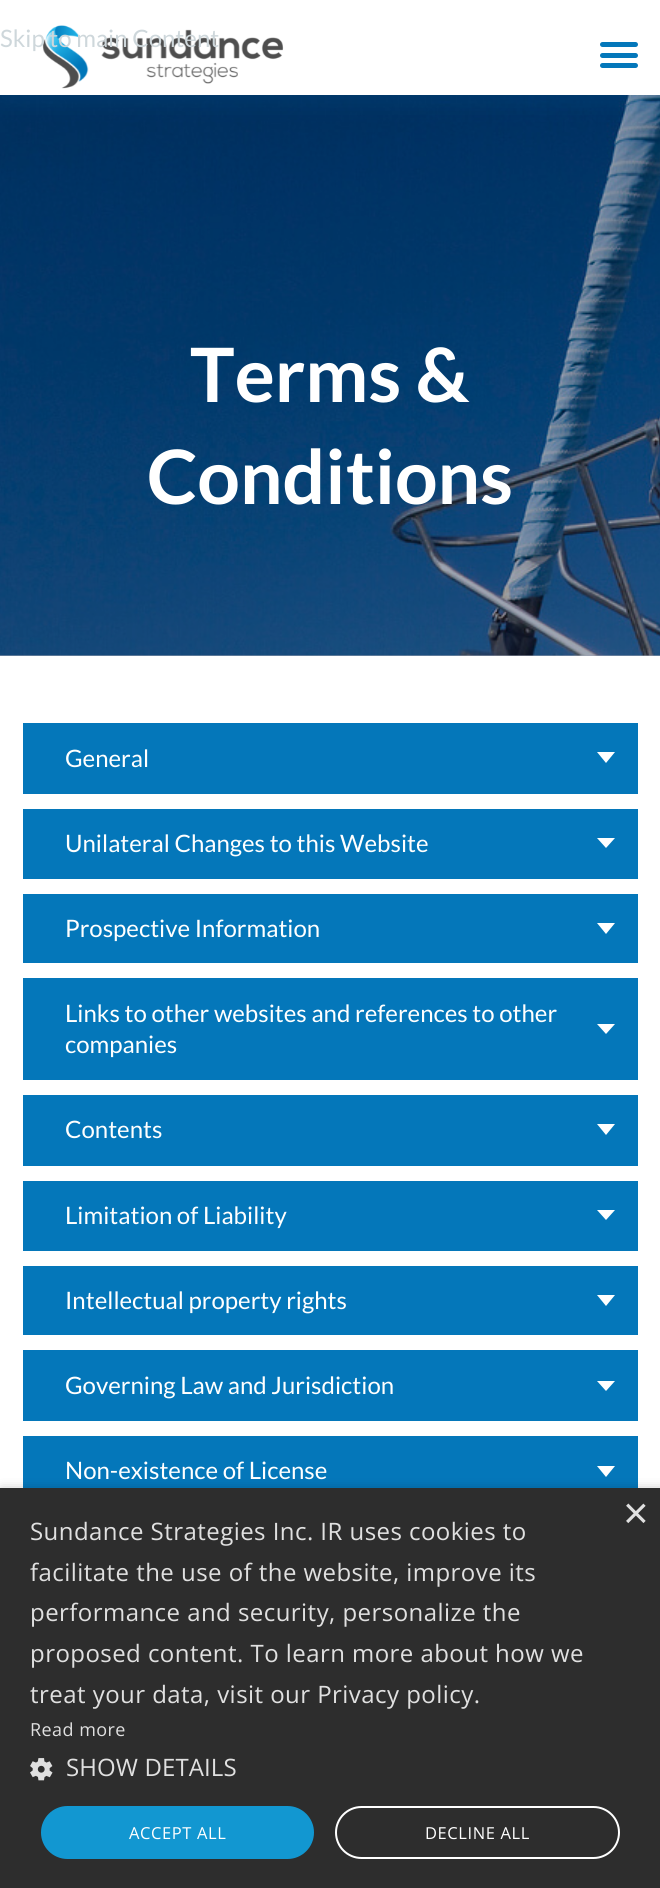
import math
import cairo


def use_color(cr, r, g, b):
  cr.set_source_rgb(r / 255, g / 255, b / 255)

def text(cr, x, y, s, family, size, color, bold=False, italic=False):
  cr.select_font_face(family, cairo.FONT_SLANT_ITALIC if italic else cairo.FONT_SLANT_NORMAL, cairo.FONT_WEIGHT_BOLD if bold else cairo.FONT_WEIGHT_NORMAL)
  cr.set_font_size(size)
  use_color(cr, *color)
  cr.move_to(x, y)
  cr.show_text(s)

def spaced_text(cr, x, y, s, letter, word):
  cr.move_to(x, y)
  for ch in s:
    cr.show_text(ch)
    cr.rel_move_to(letter + word * (ch == ' '), 0)

def box(cr, x, y, w, h, *color):
  use_color(cr, *color)
  cr.rectangle(x, y, w, h)
  cr.fill()

def round_rect(cr, x, y, w, h, r):
  cr.new_sub_path()
  for i, (u, v) in enumerate([(x + w - r, y + h - r), (x + r, y + h - r), (x + r, y + r), (x + w - r, y + r)]):
    cr.arc(u, v, r, i * math.pi / 2, (i + 1) * math.pi / 2)
  cr.close_path()

def shadow(cr, x, y, w, h, r, blur, alpha):
  cr.push_group_with_content(cairo.CONTENT_ALPHA)
  cr.set_operator(cairo.OPERATOR_SOURCE)
  for i in range(15, -16, -2):
    e = blur * i / 6
    if min(w, h) + 2 * e > 0:
      cr.set_source_rgba(0, 0, 0, alpha * math.erfc((i - 1) / 8.5) / 2)
      round_rect(cr, x - e, y - e, w + 2 * e, h + 2 * e, max(0, min(r + e + blur * .6, min(w, h) / 2 + e)))
      cr.fill()
  cr.mask(cr.pop_group())

def picture(cr, path, x, y, w, h):
  cr.save()
  cr.set_source_surface(cairo.ImageSurface.create_from_png(path), x, y)
  cr.rectangle(x, y, w, h)
  cr.fill()
  cr.restore()

def draw(cr):
  use_color(cr, 255, 255, 255)
  cr.paint()
  box(cr, 0, 655, 660, 1, 158, 165, 179)
  picture(cr, "img_02.png", 0, 95, 660, 561)
  use_color(cr, 4, 119, 186)
  shadow(cr, 0, 8, 660, 94, 0, 11, 0.15)
  box(cr, 0, 0, 660, 95, 255, 255, 255)
  picture(cr, "img_01.png", 42, 25, 242, 64)
  use_color(cr, 4, 119, 186)
  round_rect(cr, 600, 42, 38, 5, 2.5)
  cr.fill()
  round_rect(cr, 600, 53, 38, 5, 2.5)
  cr.fill()
  round_rect(cr, 600, 63, 38, 5, 2.5)
  cr.fill()
  box(cr, 23, 723, 615, 71, 4, 119, 186)
  use_color(cr, 255, 255, 255)
  cr.new_path()
  cr.move_to(597, 752)
  cr.line_to(615, 752)
  cr.line_to(606, 763)
  cr.close_path()
  cr.fill()
  box(cr, 23, 809, 615, 70, 4, 119, 186)
  use_color(cr, 255, 255, 255)
  cr.new_path()
  cr.move_to(597, 838)
  cr.line_to(615, 838)
  cr.line_to(606, 848)
  cr.close_path()
  cr.fill()
  box(cr, 23, 894, 615, 69, 4, 119, 186)
  use_color(cr, 255, 255, 255)
  cr.new_path()
  cr.move_to(597, 923)
  cr.line_to(615, 923)
  cr.line_to(606, 934)
  cr.close_path()
  cr.fill()
  box(cr, 23, 978, 615, 102, 4, 119, 186)
  use_color(cr, 255, 255, 255)
  cr.new_path()
  cr.move_to(597, 1024)
  cr.line_to(615, 1024)
  cr.line_to(606, 1034)
  cr.close_path()
  cr.fill()
  box(cr, 23, 1095, 615, 71, 4, 119, 186)
  use_color(cr, 255, 255, 255)
  cr.new_path()
  cr.move_to(597, 1124)
  cr.line_to(615, 1124)
  cr.line_to(606, 1135)
  cr.close_path()
  cr.fill()
  box(cr, 23, 1181, 615, 70, 4, 119, 186)
  use_color(cr, 255, 255, 255)
  cr.new_path()
  cr.move_to(597, 1210)
  cr.line_to(615, 1210)
  cr.line_to(606, 1220)
  cr.close_path()
  cr.fill()
  box(cr, 23, 1266, 615, 69, 4, 119, 186)
  use_color(cr, 255, 255, 255)
  cr.new_path()
  cr.move_to(597, 1295)
  cr.line_to(615, 1295)
  cr.line_to(606, 1306)
  cr.close_path()
  cr.fill()
  box(cr, 23, 1350, 615, 71, 4, 119, 186)
  use_color(cr, 255, 255, 255)
  cr.new_path()
  cr.move_to(597, 1381)
  cr.line_to(615, 1381)
  cr.line_to(606, 1391)
  cr.close_path()
  cr.fill()
  box(cr, 23, 1436, 615, 52, 4, 119, 186)
  use_color(cr, 255, 255, 255)
  cr.new_path()
  cr.move_to(597, 1466)
  cr.line_to(615, 1466)
  cr.line_to(606, 1477)
  cr.close_path()
  cr.fill()
  use_color(cr, 0, 0, 0)
  shadow(cr, 2, 1491, 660, 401, 0, 6, 0.35)
  box(cr, 0, 1488, 660, 400, 45, 45, 45)
  picture(cr, "img_03.png", 30, 1758, 23, 23)
  use_color(cr, 18, 151, 209)
  round_rect(cr, 41, 1806, 273, 53, 26.5)
  cr.fill()
  round_rect(cr, 336, 1807, 283, 51, 25.5)
  use_color(cr, 255, 255, 255)
  cr.stroke()
  text(cr, 0, 47, "Skip to main Content", "Lato", 24, (206, 215, 219))
  text(cr, 190, 402, "Terms &", "Lato", 75, (255, 255, 255), bold=True)
  text(cr, 147, 504, "Conditions", "Lato", 75, (255, 255, 255), bold=True)
  text(cr, 65, 767, "General", "Lato", 24, (255, 255, 255))
  text(cr, 65, 852, "Unilateral Changes to this Website", "Lato", 24, (255, 255, 255))
  text(cr, 65, 937, "Prospective Information", "Lato", 24, (255, 255, 255))
  text(cr, 65, 1022, "Links to other websites and references to other", "Lato", 24, (255, 255, 255))
  text(cr, 65, 1053, "companies", "Lato", 24, (255, 255, 255))
  text(cr, 65, 1138, "Contents", "Lato", 24, (255, 255, 255))
  text(cr, 65, 1224, "Limitation of Liability", "Lato", 24, (255, 255, 255))
  text(cr, 65, 1309, "Intellectual property rights", "Lato", 24, (255, 255, 255))
  text(cr, 65, 1394, "Governing Law and Jurisdiction", "Lato", 24, (255, 255, 255))
  text(cr, 65, 1479, "Non-existence of License", "Lato", 24, (255, 255, 255))
  text(cr, 623, 1528, "×", "Liberation Sans", 44, (224, 224, 224))
  cr.select_font_face("Open Sans")
  cr.set_font_size(24)
  spaced_text(cr, 30, 1540, "Sundance Strategies Inc. IR uses cookies to", 0.45, 0)
  spaced_text(cr, 30, 1581, "facilitate the use of the website, improve its", 0.45, 0)
  spaced_text(cr, 30, 1621, "performance and security, personalize the", 0.45, 0)
  spaced_text(cr, 30, 1662, "proposed content. To learn more about how we", 0.45, 0)
  spaced_text(cr, 30, 1703, "treat your data, visit our Privacy policy.", 0.45, 0)
  cr.set_font_size(18)
  spaced_text(cr, 30, 1736, "Read more", 0.45, 0)
  cr.set_font_size(24)
  spaced_text(cr, 66, 1776, "SHOW DETAILS", 0.1, 0)
  cr.set_font_size(16.5)
  use_color(cr, 255, 255, 255)
  spaced_text(cr, 129, 1839, "ACCEPT ALL", 0.6, 0)
  spaced_text(cr, 425, 1839, "DECLINE ALL", 0.6, 0)


surface = cairo.ImageSurface(cairo.FORMAT_RGB24, 660, 1888)
cr = cairo.Context(surface)
options = cairo.FontOptions()
options.set_hint_metrics(cairo.HINT_METRICS_OFF)
options.set_hint_style(cairo.HINT_STYLE_NONE)
cr.set_font_options(options)
cr.set_miter_limit(4)
draw(cr)
surface.write_to_png("out.png")
